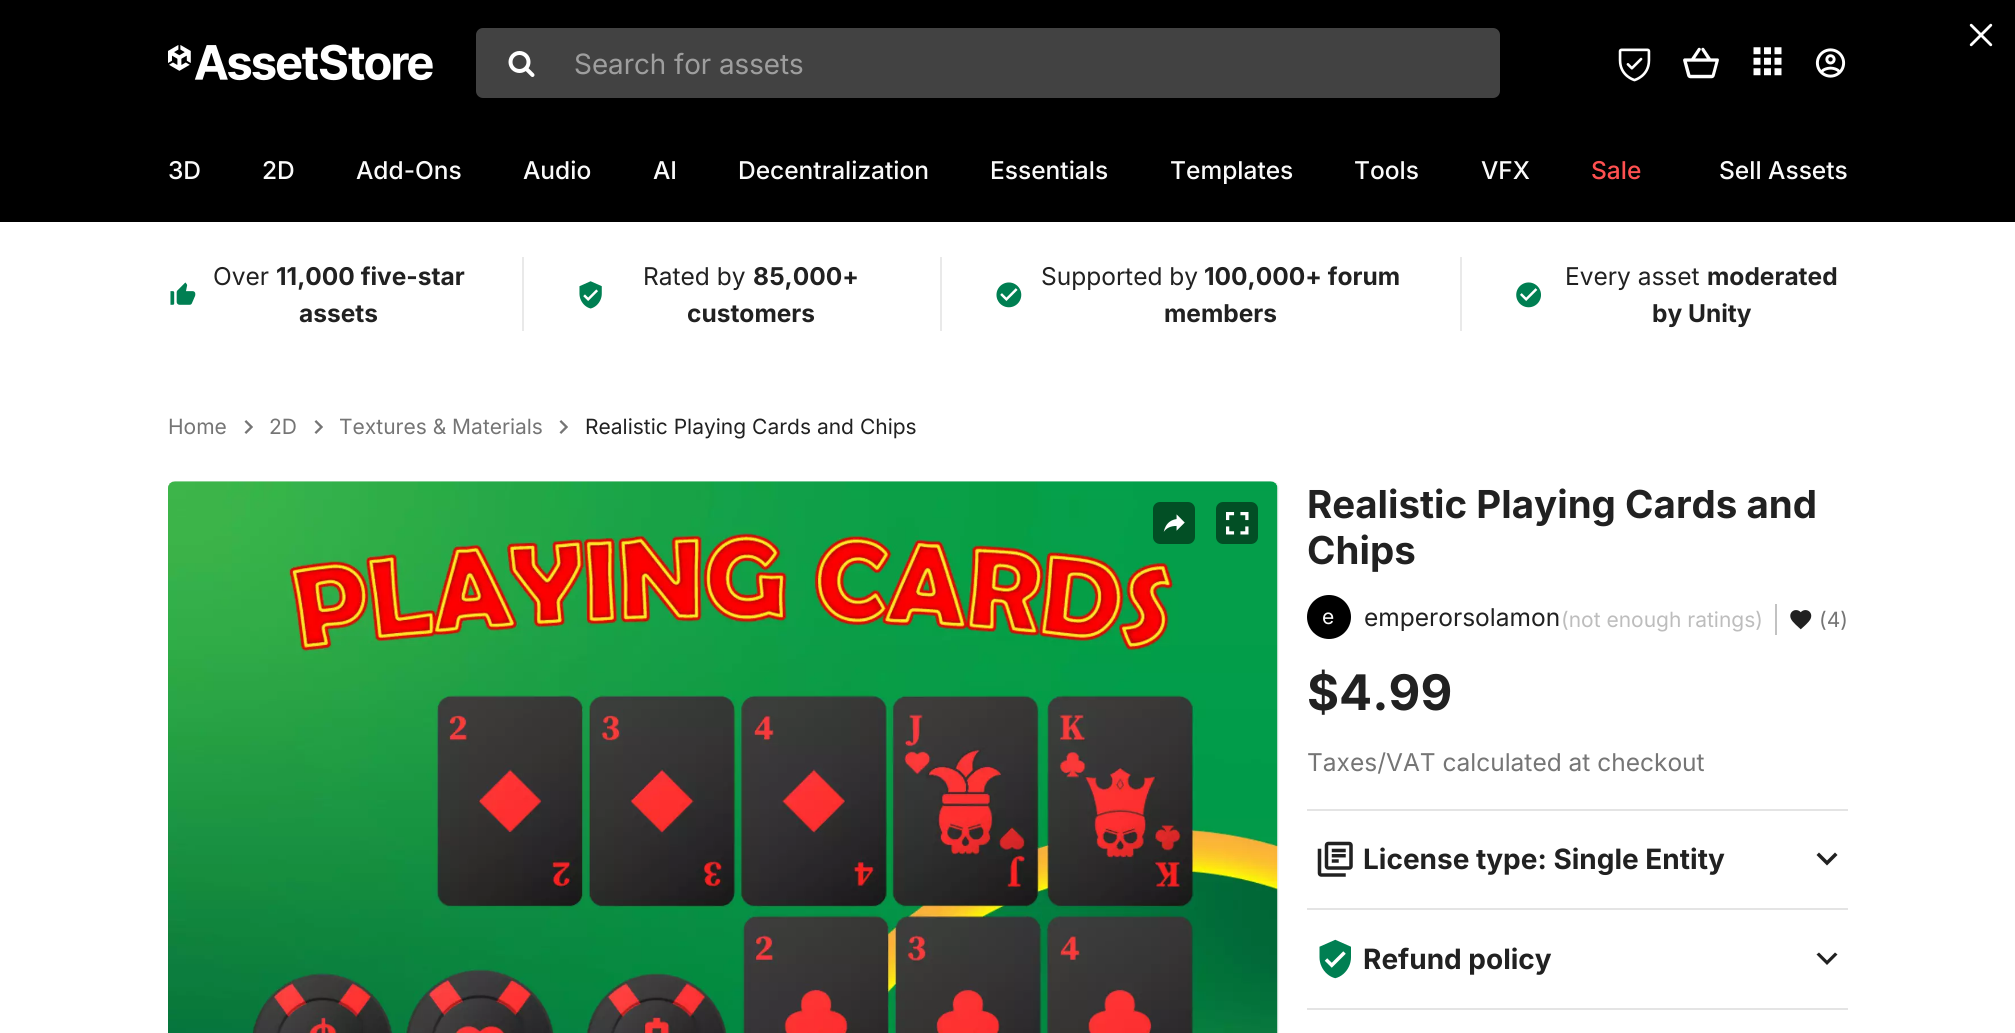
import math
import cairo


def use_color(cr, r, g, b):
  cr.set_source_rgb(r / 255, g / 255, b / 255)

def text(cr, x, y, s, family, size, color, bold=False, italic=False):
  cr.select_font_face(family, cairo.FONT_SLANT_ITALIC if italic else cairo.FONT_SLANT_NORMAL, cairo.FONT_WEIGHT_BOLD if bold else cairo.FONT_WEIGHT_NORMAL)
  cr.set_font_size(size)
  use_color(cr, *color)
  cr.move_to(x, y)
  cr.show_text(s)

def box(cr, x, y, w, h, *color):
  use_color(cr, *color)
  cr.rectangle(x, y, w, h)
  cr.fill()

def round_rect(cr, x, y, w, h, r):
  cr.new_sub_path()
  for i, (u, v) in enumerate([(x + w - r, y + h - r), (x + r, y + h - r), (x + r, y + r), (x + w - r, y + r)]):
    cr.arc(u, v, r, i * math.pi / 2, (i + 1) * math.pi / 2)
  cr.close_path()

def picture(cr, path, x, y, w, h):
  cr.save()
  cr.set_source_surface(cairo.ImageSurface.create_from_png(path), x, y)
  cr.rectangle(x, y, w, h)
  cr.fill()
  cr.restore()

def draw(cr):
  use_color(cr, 255, 255, 255)
  cr.paint()
  box(cr, 0, 0, 2015, 222, 0, 0, 0)
  picture(cr, "img_01.png", 1969, 23, 24, 24)
  picture(cr, "img_02.png", 168, 44, 265, 37)
  use_color(cr, 66, 66, 66)
  round_rect(cr, 476, 28, 1024, 70, 7)
  cr.fill()
  picture(cr, "img_03.png", 508, 51, 27, 26)
  picture(cr, "img_04.png", 1618, 48, 33, 34)
  picture(cr, "img_05.png", 1683, 47, 36, 32)
  picture(cr, "img_06.png", 1753, 47, 29, 29)
  picture(cr, "img_07.png", 1815, 48, 31, 30)
  picture(cr, "img_08.png", 170, 282, 26, 23)
  box(cr, 940, 257, 2, 74, 233, 233, 233)
  box(cr, 522, 257, 2, 74, 233, 233, 233)
  picture(cr, "img_09.png", 579, 281, 23, 28)
  box(cr, 1460, 257, 2, 74, 233, 233, 233)
  picture(cr, "img_10.png", 996, 282, 26, 26)
  picture(cr, "img_11.png", 1516, 282, 25, 26)
  picture(cr, "img_12.png", 244, 420, 9, 14)
  picture(cr, "img_12.png", 314, 420, 9, 14)
  picture(cr, "img_12.png", 559, 420, 9, 14)
  use_color(cr, 245, 245, 245)
  cr.new_path()
  cr.move_to(175, 481)
  cr.line_to(1272, 481)
  cr.curve_to(1276, 481, 1279, 484, 1279, 488)
  cr.line_to(1279, 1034)
  cr.line_to(168, 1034)
  cr.line_to(168, 488)
  cr.curve_to(168, 484, 171, 481, 175, 481)
  cr.close_path()
  cr.fill()
  picture(cr, "img_13.png", 168, 481, 1110, 552)
  use_color(cr, 2, 79, 37)
  round_rect(cr, 1153, 502, 42, 42, 7)
  cr.fill()
  picture(cr, "img_14.png", 1163, 514, 22, 18)
  round_rect(cr, 1216, 502, 42, 42, 7)
  cr.fill()
  picture(cr, "img_15.png", 1226, 512, 23, 23)
  use_color(cr, 0, 0, 0)
  cr.arc(1329, 617, 22, 0, 2 * math.pi)
  cr.fill()
  box(cr, 1775, 604, 2, 31, 194, 194, 194)
  picture(cr, "img_16.png", 1790, 610, 22, 20)
  box(cr, 1307, 809, 541, 2, 228, 228, 228)
  picture(cr, "img_17.png", 1317, 841, 36, 36)
  use_color(cr, 33, 33, 33)
  cr.new_path()
  cr.move_to(1827, 865.5)
  cr.line_to(1837.5, 855)
  cr.line_to(1835, 852.5)
  cr.line_to(1827, 860.5)
  cr.line_to(1819, 852.5)
  cr.line_to(1816.5, 855)
  cr.close_path()
  cr.fill()
  box(cr, 1307, 908, 541, 2, 228, 228, 228)
  box(cr, 1307, 1008, 541, 2, 228, 228, 228)
  picture(cr, "img_18.png", 1319, 939, 32, 40)
  use_color(cr, 33, 33, 33)
  cr.new_path()
  cr.move_to(1827, 965)
  cr.line_to(1837.5, 954.5)
  cr.line_to(1835, 952.5)
  cr.line_to(1827, 960.5)
  cr.line_to(1819, 952.5)
  cr.line_to(1816.5, 954.5)
  cr.close_path()
  cr.fill()
  text(cr, 574, 74, "Search for assets", "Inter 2", 28, (158, 158, 158))
  text(cr, 168, 179, "3D", "Inter Medium", 24.5, (250, 250, 250))
  text(cr, 262, 179, "2D", "Inter Medium", 24.5, (250, 250, 250))
  text(cr, 356, 179, "Add-Ons", "Inter Medium", 24.5, (250, 250, 250))
  text(cr, 523, 179, "Audio", "Inter Medium", 24.5, (250, 250, 250))
  text(cr, 653, 179, "AI", "Inter Medium", 24.5, (250, 250, 250))
  text(cr, 738, 179, "Decentralization", "Inter Medium", 24.5, (250, 250, 250))
  text(cr, 990, 179, "Essentials", "Inter Medium", 24.5, (250, 250, 250))
  text(cr, 1170, 179, "Templates", "Inter Medium", 24.5, (250, 250, 250))
  text(cr, 1354, 179, "Tools", "Inter Medium", 24.5, (250, 250, 250))
  text(cr, 1481, 179, "VFX", "Inter Medium", 24.5, (250, 250, 250))
  text(cr, 1591, 179, "Sale", "Inter Medium", 24.5, (255, 80, 80))
  text(cr, 1719, 179, "Sell Assets", "Inter Medium", 24.5, (250, 250, 250))
  text(cr, 213, 285, "Over", "Inter", 24.5, (33, 33, 33))
  text(cr, 276, 285, "11,000 five-star", "Inter", 24.5, (33, 33, 33), bold=True)
  text(cr, 299, 322, "assets", "Inter", 24.5, (33, 33, 33), bold=True)
  text(cr, 643, 285, "Rated by", "Inter", 24.5, (33, 33, 33))
  text(cr, 753, 285, "85,000+", "Inter", 24.5, (33, 33, 33), bold=True)
  text(cr, 687, 322, "customers", "Inter", 24.5, (33, 33, 33), bold=True)
  text(cr, 1041, 285, "Supported by", "Inter", 24.5, (33, 33, 33))
  text(cr, 1204, 285, "100,000+ forum", "Inter", 24.5, (33, 33, 33), bold=True)
  text(cr, 1164, 322, "members", "Inter", 24.5, (33, 33, 33), bold=True)
  text(cr, 1565, 285, "Every asset", "Inter", 24.5, (33, 33, 33))
  text(cr, 1707, 285, "moderated", "Inter", 24.5, (33, 33, 33), bold=True)
  text(cr, 1652, 322, "by Unity", "Inter", 24.5, (33, 33, 33), bold=True)
  text(cr, 168, 434, "Home", "Inter", 21, (117, 117, 117))
  text(cr, 269, 434, "2D", "Inter", 21, (117, 117, 117))
  text(cr, 339, 434, "Textures & Materials", "Inter", 21, (117, 117, 117))
  text(cr, 585, 434, "Realistic Playing Cards and Chips", "Inter", 21, (33, 33, 33))
  text(cr, 1307, 518, "Realistic Playing Cards and", "Inter", 38.5, (33, 33, 33), bold=True)
  text(cr, 1307, 564, "Chips", "Inter", 38.5, (33, 33, 33), bold=True)
  text(cr, 1322, 624, "e", "Inter", 21, (250, 250, 250))
  text(cr, 1364, 626, "emperorsolamon", "Inter", 24.5, (33, 33, 33))
  text(cr, 1561, 627, "(not enough ratings)", "Inter", 21, (189, 189, 189))
  text(cr, 1819, 627, "(4)", "Inter", 21, (117, 117, 117))
  text(cr, 1307, 710, "$4.99", "Inter", 49, (33, 33, 33), bold=True)
  text(cr, 1307, 771, "Taxes/VAT calculated at checkout", "Inter", 24.5, (117, 117, 117))
  text(cr, 1363, 869, "License type: Single Entity", "Inter", 28, (33, 33, 33), bold=True)
  text(cr, 1363, 969, "Refund policy", "Inter", 28, (33, 33, 33), bold=True)


surface = cairo.ImageSurface(cairo.FORMAT_RGB24, 2015, 1033)
cr = cairo.Context(surface)
options = cairo.FontOptions()
options.set_hint_metrics(cairo.HINT_METRICS_OFF)
options.set_hint_style(cairo.HINT_STYLE_NONE)
cr.set_font_options(options)
cr.set_miter_limit(4)
draw(cr)
surface.write_to_png("out.png")
